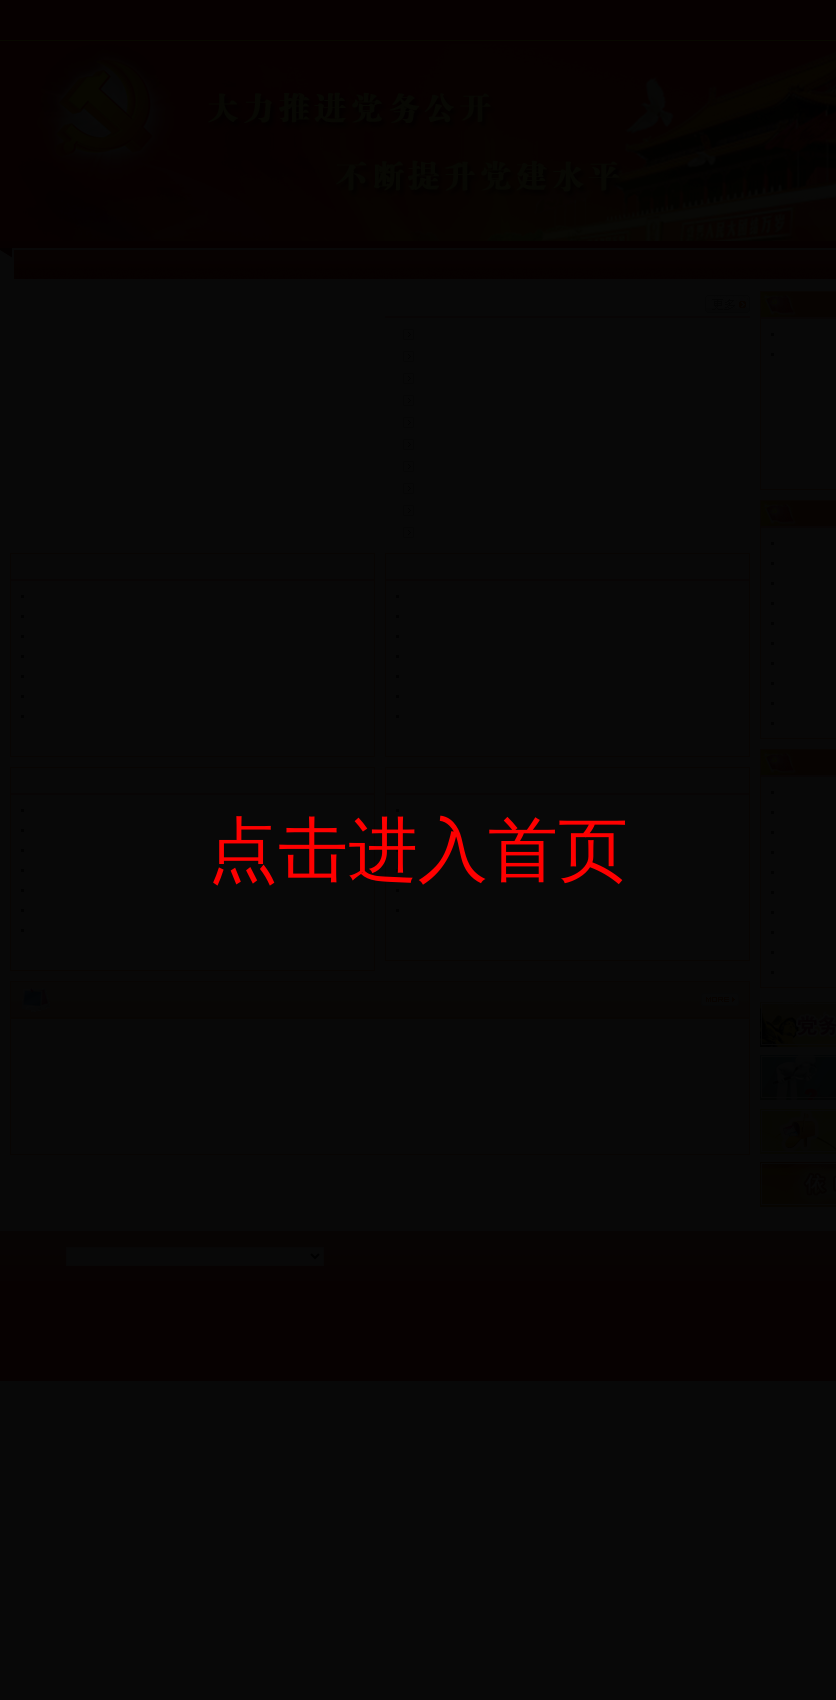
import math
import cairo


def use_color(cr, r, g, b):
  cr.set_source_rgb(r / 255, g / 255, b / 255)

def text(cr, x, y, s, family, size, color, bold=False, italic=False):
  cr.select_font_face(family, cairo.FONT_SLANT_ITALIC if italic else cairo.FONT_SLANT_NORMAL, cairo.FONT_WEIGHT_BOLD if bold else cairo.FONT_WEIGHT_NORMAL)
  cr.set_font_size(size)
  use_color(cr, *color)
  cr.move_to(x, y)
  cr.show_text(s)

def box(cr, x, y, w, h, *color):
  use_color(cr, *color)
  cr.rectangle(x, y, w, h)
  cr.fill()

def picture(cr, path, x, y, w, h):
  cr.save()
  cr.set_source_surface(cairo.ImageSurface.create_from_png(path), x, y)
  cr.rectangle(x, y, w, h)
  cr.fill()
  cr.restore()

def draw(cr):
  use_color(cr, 8, 8, 8)
  cr.paint()
  box(cr, 0, 0, 836, 40, 6, 0, 0)
  box(cr, 0, 40, 836, 1, 8, 8, 0)
  picture(cr, "img_01.png", 0, 41, 836, 200)
  picture(cr, "img_02.png", 0, 241, 836, 38)
  picture(cr, "img_03.png", 705, 295, 45, 18)
  box(cr, 385, 316, 365, 2, 8, 5, 5)
  picture(cr, "img_04.png", 403, 329, 11, 11)
  picture(cr, "img_04.png", 403, 351, 11, 11)
  picture(cr, "img_04.png", 403, 373, 11, 11)
  picture(cr, "img_04.png", 403, 395, 11, 11)
  picture(cr, "img_04.png", 403, 417, 11, 11)
  picture(cr, "img_04.png", 403, 439, 11, 11)
  picture(cr, "img_04.png", 403, 461, 11, 11)
  picture(cr, "img_04.png", 403, 483, 11, 11)
  picture(cr, "img_04.png", 403, 505, 11, 11)
  picture(cr, "img_04.png", 403, 527, 11, 11)
  cr.rectangle(10.5, 553.5, 364, 203)
  use_color(cr, 8, 5, 3)
  cr.set_line_width(1)
  cr.stroke()
  box(cr, 11, 579, 363, 2, 8, 5, 5)
  box(cr, 21, 595, 3, 3, 2, 2, 2)
  box(cr, 21, 615, 3, 3, 2, 2, 2)
  box(cr, 21, 635, 3, 3, 2, 2, 2)
  box(cr, 21, 655, 3, 3, 2, 2, 2)
  box(cr, 21, 675, 3, 3, 2, 2, 2)
  box(cr, 21, 695, 3, 3, 2, 2, 2)
  box(cr, 21, 715, 3, 3, 2, 2, 2)
  cr.rectangle(385.5, 553.5, 364, 203)
  use_color(cr, 8, 5, 3)
  cr.stroke()
  box(cr, 386, 579, 363, 2, 8, 5, 5)
  box(cr, 396, 595, 3, 3, 2, 2, 2)
  box(cr, 396, 615, 3, 3, 2, 2, 2)
  box(cr, 396, 635, 3, 3, 2, 2, 2)
  box(cr, 396, 655, 3, 3, 2, 2, 2)
  box(cr, 396, 675, 3, 3, 2, 2, 2)
  box(cr, 396, 695, 3, 3, 2, 2, 2)
  box(cr, 396, 715, 3, 3, 2, 2, 2)
  cr.rectangle(10.5, 767.5, 364, 203)
  use_color(cr, 8, 5, 3)
  cr.stroke()
  box(cr, 11, 793, 363, 2, 8, 5, 5)
  box(cr, 21, 809, 3, 3, 2, 2, 2)
  box(cr, 21, 829, 3, 3, 2, 2, 2)
  box(cr, 21, 849, 3, 3, 2, 2, 2)
  box(cr, 21, 869, 3, 3, 2, 2, 2)
  box(cr, 21, 889, 3, 3, 2, 2, 2)
  box(cr, 21, 909, 3, 3, 2, 2, 2)
  box(cr, 21, 929, 3, 3, 2, 2, 2)
  cr.rectangle(385.5, 767.5, 364, 193)
  use_color(cr, 8, 5, 3)
  cr.stroke()
  box(cr, 386, 793, 363, 2, 8, 5, 5)
  box(cr, 396, 809, 3, 3, 2, 2, 2)
  box(cr, 396, 829, 3, 3, 2, 2, 2)
  box(cr, 396, 849, 3, 3, 2, 2, 2)
  box(cr, 396, 869, 3, 3, 2, 2, 2)
  box(cr, 396, 889, 3, 3, 2, 2, 2)
  box(cr, 396, 909, 3, 3, 2, 2, 2)
  picture(cr, "img_05.png", 11, 982, 738, 35)
  cr.rectangle(10.5, 981.5, 739, 36)
  use_color(cr, 8, 5, 3)
  cr.stroke()
  picture(cr, "img_06.png", 22, 988, 28, 24)
  picture(cr, "img_07.png", 701, 993, 38, 13)
  cr.rectangle(10.5, 1018.5, 739, 136)
  cr.stroke()
  cr.rectangle(760.5, 291.5, 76, 198)
  cr.stroke()
  picture(cr, "img_08.png", 761, 292, 75, 25)
  box(cr, 761, 317, 75, 2, 8, 5, 5)
  box(cr, 771, 333, 3, 3, 2, 2, 2)
  box(cr, 771, 353, 3, 3, 2, 2, 2)
  cr.rectangle(760.5, 500.5, 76, 238)
  use_color(cr, 8, 5, 3)
  cr.stroke()
  picture(cr, "img_08.png", 761, 501, 75, 25)
  box(cr, 761, 526, 75, 2, 8, 5, 5)
  box(cr, 771, 542, 3, 3, 2, 2, 2)
  box(cr, 771, 562, 3, 3, 2, 2, 2)
  box(cr, 771, 582, 3, 3, 2, 2, 2)
  box(cr, 771, 602, 3, 3, 2, 2, 2)
  box(cr, 771, 622, 3, 3, 2, 2, 2)
  box(cr, 771, 642, 3, 3, 2, 2, 2)
  box(cr, 771, 662, 3, 3, 2, 2, 2)
  box(cr, 771, 682, 3, 3, 2, 2, 2)
  box(cr, 771, 702, 3, 3, 2, 2, 2)
  box(cr, 771, 722, 3, 3, 2, 2, 2)
  cr.rectangle(760.5, 749.5, 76, 238)
  use_color(cr, 8, 5, 3)
  cr.stroke()
  picture(cr, "img_08.png", 761, 750, 75, 25)
  box(cr, 761, 775, 75, 2, 8, 5, 5)
  box(cr, 771, 791, 3, 3, 2, 2, 2)
  box(cr, 771, 811, 3, 3, 2, 2, 2)
  box(cr, 771, 831, 3, 3, 2, 2, 2)
  box(cr, 771, 851, 3, 3, 2, 2, 2)
  box(cr, 771, 871, 3, 3, 2, 2, 2)
  box(cr, 771, 891, 3, 3, 2, 2, 2)
  box(cr, 771, 911, 3, 3, 2, 2, 2)
  box(cr, 771, 931, 3, 3, 2, 2, 2)
  box(cr, 771, 951, 3, 3, 2, 2, 2)
  box(cr, 771, 971, 3, 3, 2, 2, 2)
  picture(cr, "img_09.png", 760, 1002, 76, 45)
  picture(cr, "img_10.png", 760, 1055, 76, 45)
  picture(cr, "img_11.png", 760, 1109, 76, 45)
  picture(cr, "img_12.png", 760, 1162, 76, 45)
  picture(cr, "img_13.png", 0, 1231, 836, 50)
  use_color(cr, 8, 8, 8)
  cr.rectangle(66.5, 1247.5, 257, 18)
  cr.fill_preserve()
  use_color(cr, 8, 7, 7)
  cr.stroke()
  cr.new_path()
  cr.move_to(311, 1254)
  cr.line_to(315, 1258)
  cr.line_to(319, 1254)
  use_color(cr, 0, 0, 0)
  cr.set_line_width(2)
  cr.stroke()
  box(cr, 0, 1281, 836, 100, 7, 1, 1)
  text(cr, 208, 874, "点击进入首页", "WenQuanYi Zen Hei Medium", 70, (255, 0, 0))


surface = cairo.ImageSurface(cairo.FORMAT_RGB24, 836, 1700)
cr = cairo.Context(surface)
options = cairo.FontOptions()
options.set_hint_metrics(cairo.HINT_METRICS_OFF)
options.set_hint_style(cairo.HINT_STYLE_NONE)
cr.set_font_options(options)
cr.set_miter_limit(4)
draw(cr)
surface.write_to_png("out.png")
